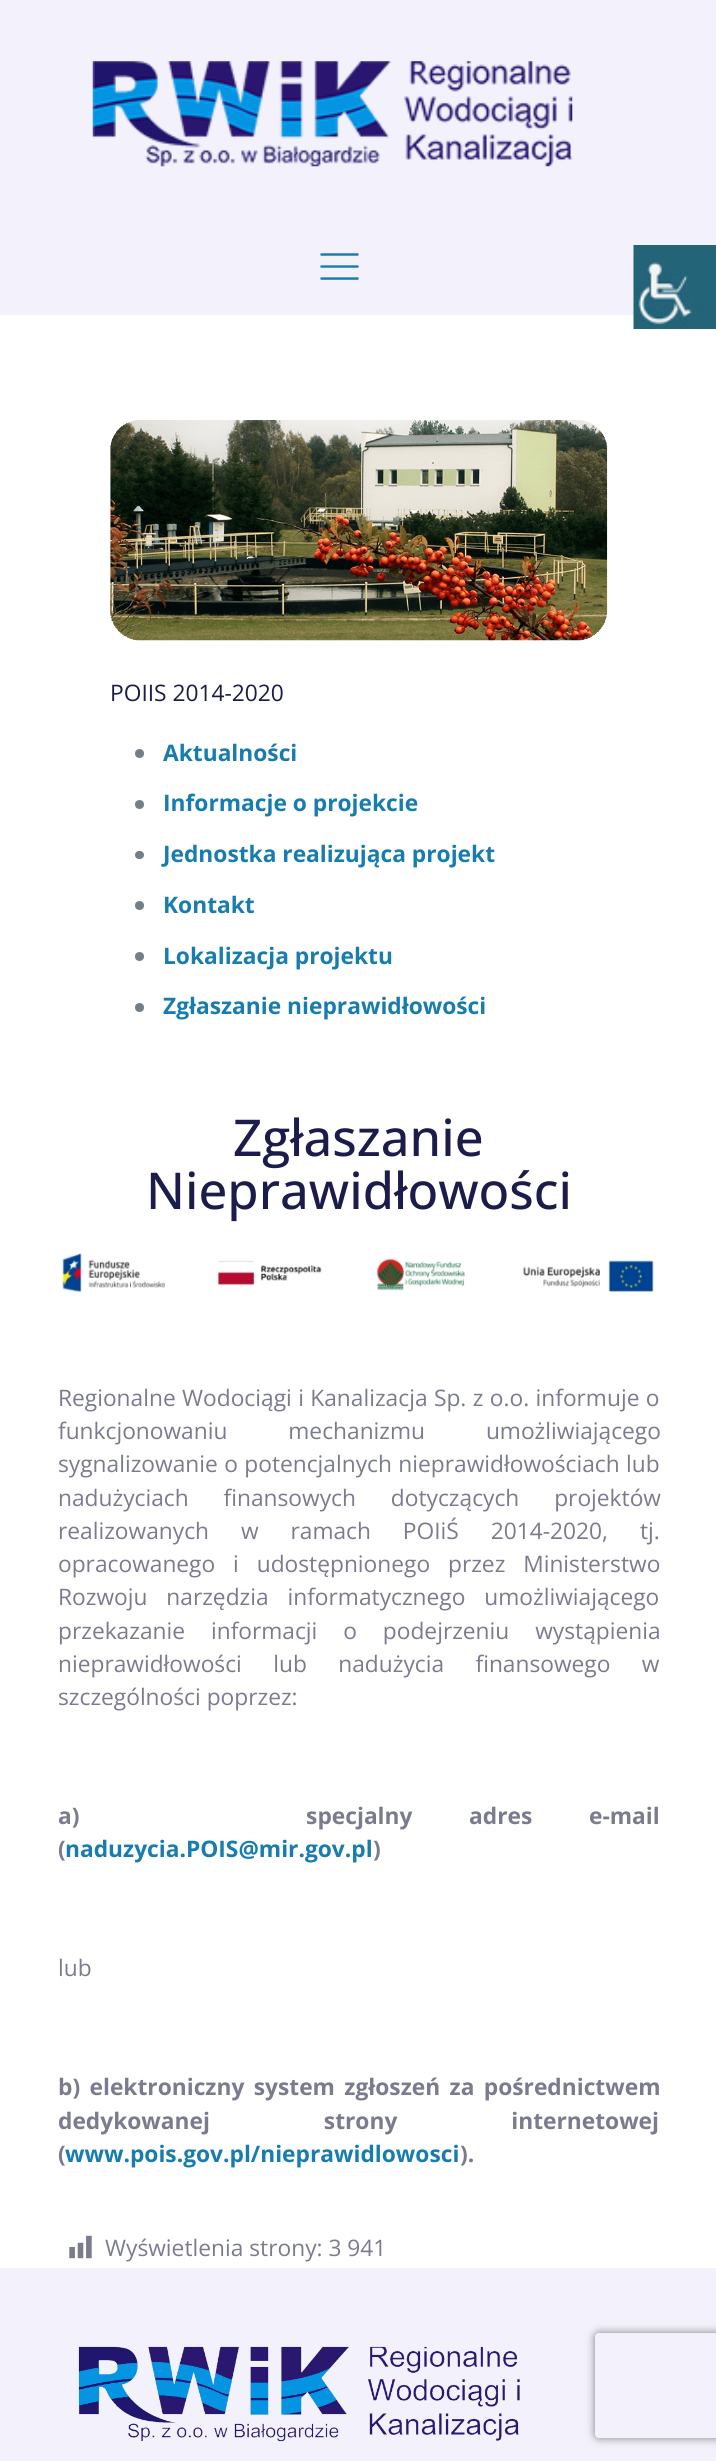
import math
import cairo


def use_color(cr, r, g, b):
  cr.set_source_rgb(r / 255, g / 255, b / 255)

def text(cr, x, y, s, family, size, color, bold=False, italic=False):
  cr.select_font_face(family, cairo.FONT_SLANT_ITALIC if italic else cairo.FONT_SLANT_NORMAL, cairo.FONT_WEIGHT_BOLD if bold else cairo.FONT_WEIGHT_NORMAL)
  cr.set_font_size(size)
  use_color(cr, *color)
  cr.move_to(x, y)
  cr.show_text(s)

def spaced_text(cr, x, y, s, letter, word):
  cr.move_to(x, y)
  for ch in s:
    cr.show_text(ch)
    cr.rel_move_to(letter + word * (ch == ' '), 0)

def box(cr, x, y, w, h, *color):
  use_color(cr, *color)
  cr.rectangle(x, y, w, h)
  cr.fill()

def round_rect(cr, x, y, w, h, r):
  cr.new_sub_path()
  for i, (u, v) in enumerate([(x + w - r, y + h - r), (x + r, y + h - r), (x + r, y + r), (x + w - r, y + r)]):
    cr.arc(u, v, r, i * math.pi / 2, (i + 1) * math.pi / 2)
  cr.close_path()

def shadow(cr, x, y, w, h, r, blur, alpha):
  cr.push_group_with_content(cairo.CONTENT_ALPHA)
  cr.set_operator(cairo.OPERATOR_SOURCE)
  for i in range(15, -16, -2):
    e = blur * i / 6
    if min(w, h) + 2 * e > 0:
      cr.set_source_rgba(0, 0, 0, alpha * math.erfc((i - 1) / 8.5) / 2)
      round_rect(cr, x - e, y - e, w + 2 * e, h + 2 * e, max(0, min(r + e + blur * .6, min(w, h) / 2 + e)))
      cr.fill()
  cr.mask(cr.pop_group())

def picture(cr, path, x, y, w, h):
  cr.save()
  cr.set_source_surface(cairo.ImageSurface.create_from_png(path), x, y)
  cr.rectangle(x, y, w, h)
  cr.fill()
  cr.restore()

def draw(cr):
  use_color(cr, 255, 255, 255)
  cr.paint()
  box(cr, 0, 0, 716, 315, 243, 241, 251)
  picture(cr, "img_01.png", 633, 245, 83, 84)
  picture(cr, "img_02.png", 92, 61, 481, 106)
  picture(cr, "img_03.png", 320, 253, 39, 27)
  picture(cr, "img_04.png", 110, 420, 498, 221)
  use_color(cr, 115, 126, 134)
  cr.arc(139.5, 753.5, 4.5, 0, 2 * math.pi)
  cr.fill()
  cr.arc(139.5, 804.5, 4.5, 0, 2 * math.pi)
  cr.fill()
  round_rect(cr, 135, 851, 9, 8, 4)
  cr.fill()
  cr.arc(139.5, 905.5, 4.5, 0, 2 * math.pi)
  cr.fill()
  cr.arc(139.5, 956.5, 4.5, 0, 2 * math.pi)
  cr.fill()
  cr.arc(139.5, 1007.5, 4.5, 0, 2 * math.pi)
  cr.fill()
  picture(cr, "img_05.png", 61, 1253, 594, 40)
  picture(cr, "img_06.png", 69, 2235, 23, 24)
  box(cr, 0, 2268, 716, 193, 243, 241, 252)
  picture(cr, "img_07.png", 78, 2346, 442, 96)
  cr.save()
  cr.set_fill_rule(cairo.FILL_RULE_EVEN_ODD)
  cr.new_path()
  cr.move_to(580, 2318)
  cr.line_to(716, 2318)
  cr.line_to(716, 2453)
  cr.line_to(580, 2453)
  cr.close_path()
  cr.move_to(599, 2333)
  cr.line_to(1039, 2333)
  cr.curve_to(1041, 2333, 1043, 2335, 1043, 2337)
  cr.line_to(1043, 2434)
  cr.curve_to(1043, 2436, 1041, 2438, 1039, 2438)
  cr.line_to(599, 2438)
  cr.curve_to(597, 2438, 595, 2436, 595, 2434)
  cr.line_to(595, 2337)
  cr.curve_to(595, 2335, 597, 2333, 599, 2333)
  cr.close_path()
  cr.clip()
  use_color(cr, 128, 128, 128)
  shadow(cr, 595, 2333, 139, 105, 4, 4.5, 1)
  cr.restore()
  text(cr, 110, 701, "POIIS 2014-2020", "Open Sans", 22.75, (27, 28, 74))
  text(cr, 163, 761, "Aktualności", "Open Sans", 22.75, (23, 125, 175), bold=True)
  text(cr, 163, 811, "Informacje o projekcie", "Open Sans", 22.75, (23, 125, 175), bold=True)
  text(cr, 163, 862, "Jednostka realizująca projekt", "Open Sans", 22.75, (23, 125, 175), bold=True)
  text(cr, 163, 913, "Kontakt", "Open Sans", 22.75, (23, 125, 175), bold=True)
  text(cr, 163, 964, "Lokalizacja projektu", "Open Sans", 22.75, (23, 125, 175), bold=True)
  text(cr, 163, 1014, "Zgłaszanie nieprawidłowości", "Open Sans", 22.75, (23, 125, 175), bold=True)
  text(cr, 233, 1156, "Zgłaszanie", "Open Sans Medium", 50.75, (27, 28, 74))
  text(cr, 146, 1209, "Nieprawidłowości", "Open Sans Medium", 50.75, (27, 28, 74))
  cr.select_font_face("Open Sans")
  cr.set_font_size(22.75)
  use_color(cr, 123, 123, 143)
  spaced_text(cr, 58, 1406, "Regionalne Wodociągi i Kanalizacja Sp. z o.o. informuje o", 0, 0.5)
  spaced_text(cr, 58, 1439, "funkcjonowaniu mechanizmu umożliwiającego", 0, 55)
  spaced_text(cr, 58, 1472, "sygnalizowanie o potencjalnych nieprawidłowościach lub", 0, 0.5)
  spaced_text(cr, 58, 1506, "nadużyciach finansowych dotyczących projektów", 0, 29)
  spaced_text(cr, 58, 1539, "realizowanych w ramach POIiŚ 2014-2020, tj.", 0, 26)
  spaced_text(cr, 58, 1572, "opracowanego i udostępnionego przez Ministerstwo", 0, 12)
  spaced_text(cr, 58, 1605, "Rozwoju narzędzia informatycznego umożliwiającego", 0, 13)
  spaced_text(cr, 58, 1639, "przekazanie informacji o podejrzeniu wystąpienia", 0, 20)
  spaced_text(cr, 58, 1672, "nieprawidłowości lub nadużycia finansowego w", 0, 25.5)
  text(cr, 58, 1705, "szczególności poprzez:", "Open Sans", 22.75, (123, 123, 143))
  cr.select_font_face("Open Sans", cairo.FONT_SLANT_NORMAL, cairo.FONT_WEIGHT_BOLD)
  spaced_text(cr, 58, 1824, "a)    specjalny adres e-mail", 0, 50.75)
  text(cr, 58, 1857, "(", "Open Sans", 22.75, (123, 123, 143), bold=True)
  text(cr, 65, 1857, "naduzycia.POIS@mir.gov.pl", "Open Sans", 22.75, (23, 125, 175), bold=True)
  text(cr, 373, 1857, ")", "Open Sans", 22.75, (123, 123, 143), bold=True)
  text(cr, 58, 1976, "lub", "Open Sans", 22.75, (123, 123, 143))
  cr.select_font_face("Open Sans", cairo.FONT_SLANT_NORMAL, cairo.FONT_WEIGHT_BOLD)
  spaced_text(cr, 58, 2095, "b) elektroniczny system zgłoszeń za pośrednictwem", 0, 3.5)
  spaced_text(cr, 58, 2129, "dedykowanej strony internetowej", 0, 108)
  text(cr, 58, 2162, "(", "Open Sans", 22.75, (123, 123, 143), bold=True)
  text(cr, 65, 2162, "www.pois.gov.pl/nieprawidlowosci", "Open Sans", 22.75, (23, 125, 175), bold=True)
  text(cr, 460, 2162, ").", "Open Sans", 22.75, (123, 123, 143), bold=True)
  text(cr, 105, 2256, "Wyświetlenia strony: 3 941", "Open Sans", 22.75, (123, 123, 143))


surface = cairo.ImageSurface(cairo.FORMAT_RGB24, 716, 2461)
cr = cairo.Context(surface)
options = cairo.FontOptions()
options.set_hint_metrics(cairo.HINT_METRICS_OFF)
options.set_hint_style(cairo.HINT_STYLE_NONE)
cr.set_font_options(options)
cr.set_miter_limit(4)
draw(cr)
surface.write_to_png("out.png")
